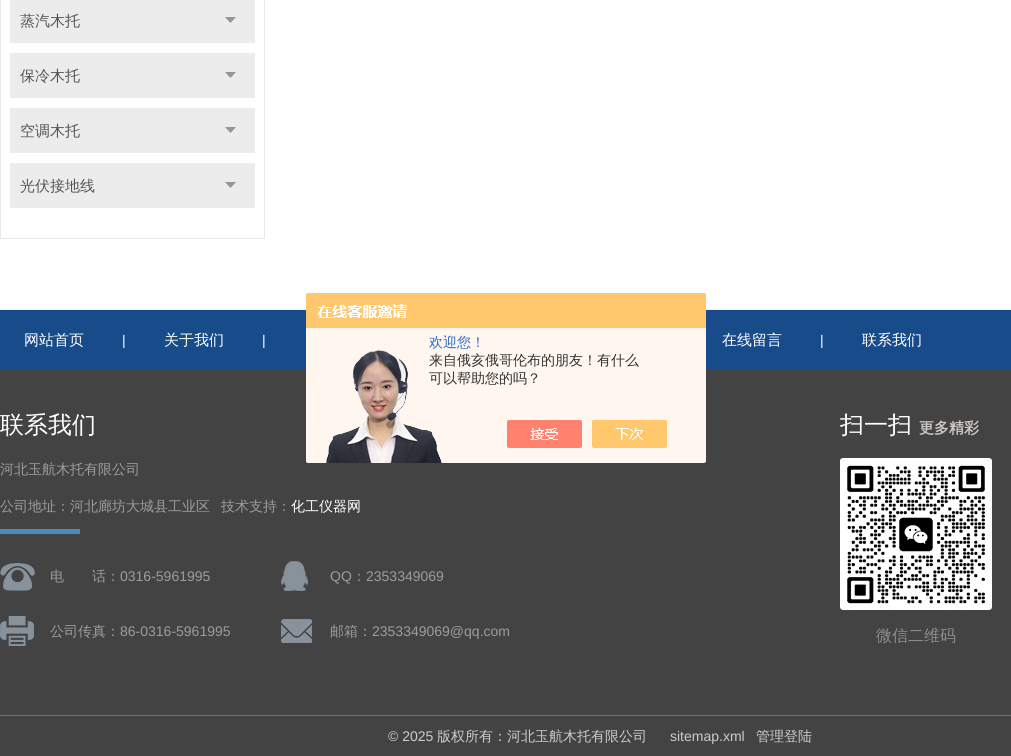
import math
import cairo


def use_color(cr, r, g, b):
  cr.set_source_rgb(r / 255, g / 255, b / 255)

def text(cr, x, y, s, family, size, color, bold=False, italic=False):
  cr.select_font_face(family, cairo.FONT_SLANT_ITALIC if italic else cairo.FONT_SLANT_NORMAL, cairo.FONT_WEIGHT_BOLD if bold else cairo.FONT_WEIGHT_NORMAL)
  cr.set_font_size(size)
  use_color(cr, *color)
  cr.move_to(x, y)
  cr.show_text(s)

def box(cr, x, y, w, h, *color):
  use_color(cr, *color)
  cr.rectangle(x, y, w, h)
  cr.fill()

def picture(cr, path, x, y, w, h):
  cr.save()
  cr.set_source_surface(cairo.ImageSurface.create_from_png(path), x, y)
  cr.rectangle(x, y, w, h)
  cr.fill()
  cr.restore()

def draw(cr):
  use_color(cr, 255, 255, 255)
  cr.paint()
  box(cr, 264, 0, 1, 239, 232, 232, 232)
  box(cr, 0, 238, 265, 1, 232, 232, 232)
  box(cr, 0, 0, 1, 239, 232, 232, 232)
  box(cr, 10, 0, 245, 43, 236, 236, 236)
  picture(cr, "img_01.png", 225, 17, 11, 6)
  box(cr, 10, 53, 245, 45, 236, 236, 236)
  picture(cr, "img_01.png", 225, 72, 11, 6)
  box(cr, 10, 108, 245, 45, 236, 236, 236)
  picture(cr, "img_01.png", 225, 127, 11, 6)
  box(cr, 10, 163, 245, 45, 236, 236, 236)
  picture(cr, "img_01.png", 225, 182, 11, 6)
  box(cr, 0, 310, 1011, 60, 24, 75, 138)
  box(cr, 0, 309, 1011, 1, 238, 238, 238)
  box(cr, 0, 370, 1011, 386, 67, 67, 67)
  box(cr, 0, 529, 80, 5, 78, 137, 190)
  picture(cr, "img_02.png", 0, 562, 35, 29)
  picture(cr, "img_03.png", 280, 561, 30, 30)
  picture(cr, "img_04.png", 0, 616, 36, 30)
  picture(cr, "img_05.png", 280, 618, 32, 25)
  picture(cr, "img_06.png", 840, 458, 152, 152)
  box(cr, 0, 715, 1011, 1, 113, 113, 113)
  picture(cr, "img_07.png", 306, 293, 400, 170)
  text(cr, 20, 26, "蒸汽木托", "WenQuanYi Zen Hei Medium", 15, (85, 85, 85))
  text(cr, 20, 81, "保冷木托", "WenQuanYi Zen Hei Medium", 15, (85, 85, 85))
  text(cr, 20, 136, "空调木托", "WenQuanYi Zen Hei Medium", 15, (85, 85, 85))
  text(cr, 20, 191, "光伏接地线", "WenQuanYi Zen Hei Medium", 15, (85, 85, 85))
  text(cr, 24, 345, "网站首页", "WenQuanYi Zen Hei Medium", 15, (255, 255, 255))
  text(cr, 122, 345, "|", "Liberation Sans", 14, (255, 255, 255))
  text(cr, 164, 345, "关于我们", "WenQuanYi Zen Hei Medium", 15, (255, 255, 255))
  text(cr, 262, 345, "|", "Liberation Sans", 14, (255, 255, 255))
  text(cr, 722, 345, "在线留言", "WenQuanYi Zen Hei Medium", 15, (255, 255, 255))
  text(cr, 820, 345, "|", "Liberation Sans", 14, (255, 255, 255))
  text(cr, 862, 345, "联系我们", "WenQuanYi Zen Hei Medium", 15, (255, 255, 255))
  text(cr, 0, 433, "联系我们", "WenQuanYi Zen Hei Medium", 24, (255, 255, 255))
  text(cr, 0, 474, "河北玉航木托有限公司", "WenQuanYi Zen Hei Medium", 14, (156, 156, 156))
  text(cr, 0, 511, "公司地址：河北廊坊大城县工业区", "WenQuanYi Zen Hei Medium", 14, (156, 156, 156))
  text(cr, 221, 511, "技术支持：", "WenQuanYi Zen Hei Medium", 14, (156, 156, 156))
  text(cr, 291, 511, "化工仪器网", "WenQuanYi Zen Hei Medium", 14, (255, 255, 255))
  text(cr, 50, 581, "电　　话：", "WenQuanYi Zen Hei Medium", 14, (156, 156, 156))
  text(cr, 120, 581, "0316-5961995", "Liberation Sans", 14, (156, 156, 156))
  text(cr, 330, 581, "QQ", "Liberation Sans", 14, (156, 156, 156))
  text(cr, 352, 581, "：", "WenQuanYi Zen Hei Medium", 14, (156, 156, 156))
  text(cr, 366, 581, "2353349069", "Liberation Sans", 14, (156, 156, 156))
  text(cr, 50, 636, "公司传真：", "WenQuanYi Zen Hei Medium", 14, (156, 156, 156))
  text(cr, 120, 636, "86-0316-5961995", "Liberation Sans", 14, (156, 156, 156))
  text(cr, 330, 636, "邮箱：", "WenQuanYi Zen Hei Medium", 14, (156, 156, 156))
  text(cr, 372, 636, "2353349069@qq.com", "Liberation Sans", 14, (156, 156, 156))
  text(cr, 840, 433, "扫一扫", "WenQuanYi Zen Hei Medium", 24, (255, 255, 255))
  text(cr, 919, 433, "更多精彩", "WenQuanYi Zen Hei", 15, (204, 199, 195), bold=True)
  text(cr, 876, 641, "微信二维码", "WenQuanYi Zen Hei Medium", 16, (138, 143, 146))
  text(cr, 388, 741, "© 2025", "Liberation Sans", 14, (204, 204, 204))
  text(cr, 437, 741, "版权所有：河北玉航木托有限公司", "WenQuanYi Zen Hei Medium", 14, (204, 204, 204))
  text(cr, 670, 741, "sitemap.xml", "Liberation Sans", 14, (204, 204, 204))
  text(cr, 756, 741, "管理登陆", "WenQuanYi Zen Hei Medium", 14, (204, 204, 204))
  text(cr, 429, 347, "欢迎您！", "WenQuanYi Zen Hei Medium", 14, (46, 110, 198))
  text(cr, 429, 365, "来自俄亥俄哥伦布的朋友！有什么", "WenQuanYi Zen Hei Medium", 14, (51, 51, 51))
  text(cr, 429, 383, "可以帮助您的吗？", "WenQuanYi Zen Hei Medium", 14, (51, 51, 51))


surface = cairo.ImageSurface(cairo.FORMAT_RGB24, 1011, 756)
cr = cairo.Context(surface)
options = cairo.FontOptions()
options.set_hint_metrics(cairo.HINT_METRICS_OFF)
options.set_hint_style(cairo.HINT_STYLE_NONE)
cr.set_font_options(options)
cr.set_miter_limit(4)
draw(cr)
surface.write_to_png("out.png")
